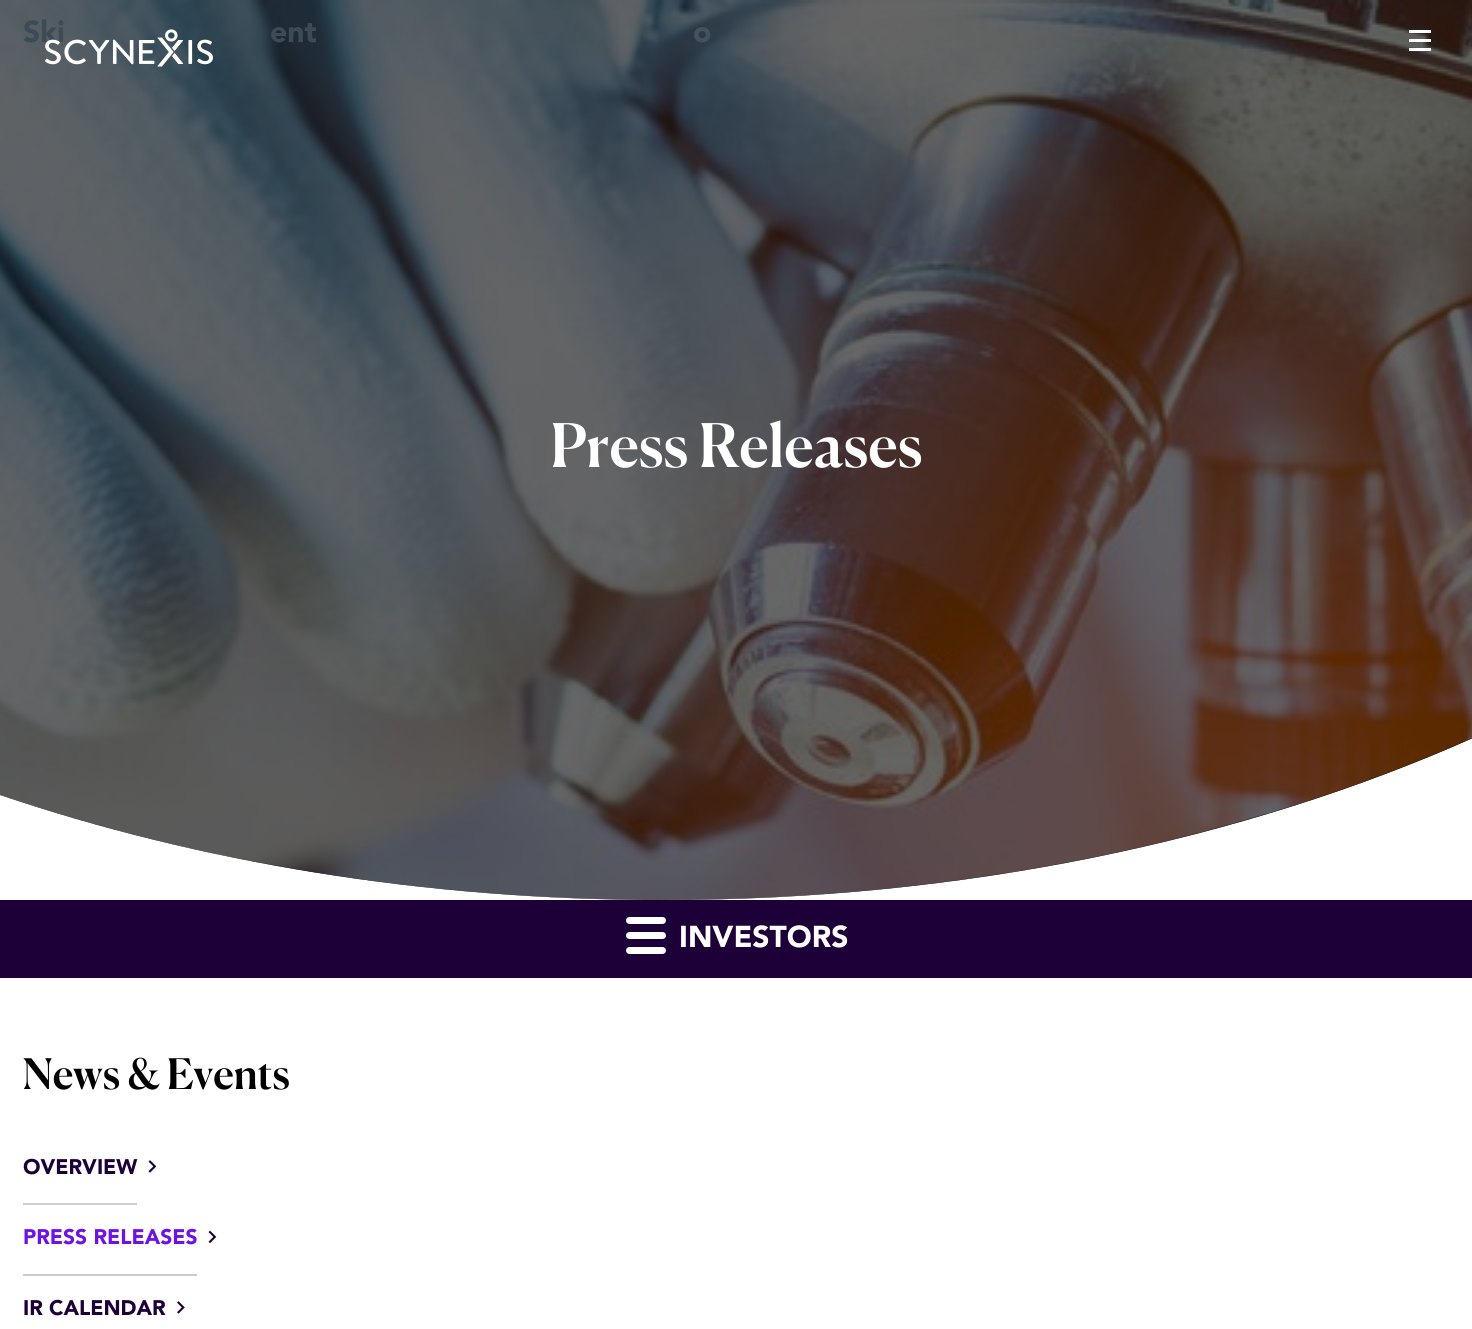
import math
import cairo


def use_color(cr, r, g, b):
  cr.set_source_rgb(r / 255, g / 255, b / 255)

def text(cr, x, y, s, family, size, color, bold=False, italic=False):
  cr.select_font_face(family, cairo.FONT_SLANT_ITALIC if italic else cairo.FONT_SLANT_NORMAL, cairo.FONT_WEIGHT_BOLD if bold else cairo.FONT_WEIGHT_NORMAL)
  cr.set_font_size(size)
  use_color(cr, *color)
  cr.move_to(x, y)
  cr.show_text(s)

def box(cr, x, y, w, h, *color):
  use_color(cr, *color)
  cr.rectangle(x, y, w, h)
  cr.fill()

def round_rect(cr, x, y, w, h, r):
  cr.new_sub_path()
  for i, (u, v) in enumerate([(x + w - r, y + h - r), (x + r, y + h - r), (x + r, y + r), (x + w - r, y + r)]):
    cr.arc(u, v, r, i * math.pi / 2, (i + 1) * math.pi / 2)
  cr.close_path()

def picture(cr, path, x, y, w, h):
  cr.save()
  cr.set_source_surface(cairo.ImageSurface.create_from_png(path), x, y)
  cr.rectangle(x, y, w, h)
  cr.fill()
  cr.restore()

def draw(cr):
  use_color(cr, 255, 255, 255)
  cr.paint()
  use_color(cr, 51, 51, 51)
  cr.new_path()
  cr.move_to(0, 0)
  cr.line_to(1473, 0)
  cr.line_to(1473, 738)
  cr.curve_to(1244, 840, 964, 900, 663, 900)
  cr.curve_to(423, 900, 198, 862, 0, 795)
  cr.close_path()
  cr.fill()
  picture(cr, "img_02.png", 0, 0, 1472, 900)
  cr.set_source_rgba(0, 0, 0, 0.6)
  cr.new_path()
  cr.move_to(0, 0)
  cr.line_to(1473, 0)
  cr.line_to(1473, 738)
  cr.curve_to(1244, 840, 964, 900, 663, 900)
  cr.curve_to(423, 900, 198, 862, 0, 795)
  cr.close_path()
  cr.fill()
  box(cr, 1409, 30, 22, 3, 255, 255, 255)
  box(cr, 1409, 39, 22, 3, 255, 255, 255)
  box(cr, 1409, 48, 22, 3, 255, 255, 255)
  box(cr, 0, 900, 1472, 78, 30, 0, 56)
  use_color(cr, 255, 255, 255)
  round_rect(cr, 626, 917, 40, 7, 3.5)
  cr.fill()
  round_rect(cr, 626, 932, 40, 7, 3.5)
  cr.fill()
  round_rect(cr, 626, 947, 40, 7, 3.5)
  cr.fill()
  box(cr, 23, 1203, 114, 2, 204, 204, 204)
  picture(cr, "img_03.png", 148, 1160, 9, 13)
  box(cr, 23, 1274, 174, 2, 204, 204, 204)
  picture(cr, "img_04.png", 208, 1230, 9, 14)
  picture(cr, "img_05.png", 177, 1301, 8, 13)
  text(cr, 23, 42, "Ski", "Avenir Black", 30, (60, 75, 85))
  text(cr, 270, 42, "ent", "Avenir Black", 30, (60, 75, 85))
  text(cr, 693, 42, "o", "Avenir Black", 30, (70, 82, 91))
  picture(cr, "img_01.png", 45, 29, 168, 38)
  text(cr, 550, 467, "Press Releases", "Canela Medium", 60, (255, 255, 255))
  text(cr, 679, 947, "INVESTORS", "Avenir Black", 30, (255, 255, 255))
  text(cr, 23, 1089, "News & Events", "Canela Medium", 42, (0, 0, 0))
  text(cr, 23, 1174, "OVERVIEW", "Avenir Black", 21, (30, 0, 56))
  text(cr, 23, 1244, "PRESS RELEASES", "Avenir Black", 21, (110, 19, 229))
  text(cr, 23, 1315, "IR CALENDAR", "Avenir Black", 21, (30, 0, 56))


surface = cairo.ImageSurface(cairo.FORMAT_RGB24, 1472, 1329)
cr = cairo.Context(surface)
options = cairo.FontOptions()
options.set_hint_metrics(cairo.HINT_METRICS_OFF)
options.set_hint_style(cairo.HINT_STYLE_NONE)
cr.set_font_options(options)
cr.set_miter_limit(4)
draw(cr)
surface.write_to_png("out.png")
